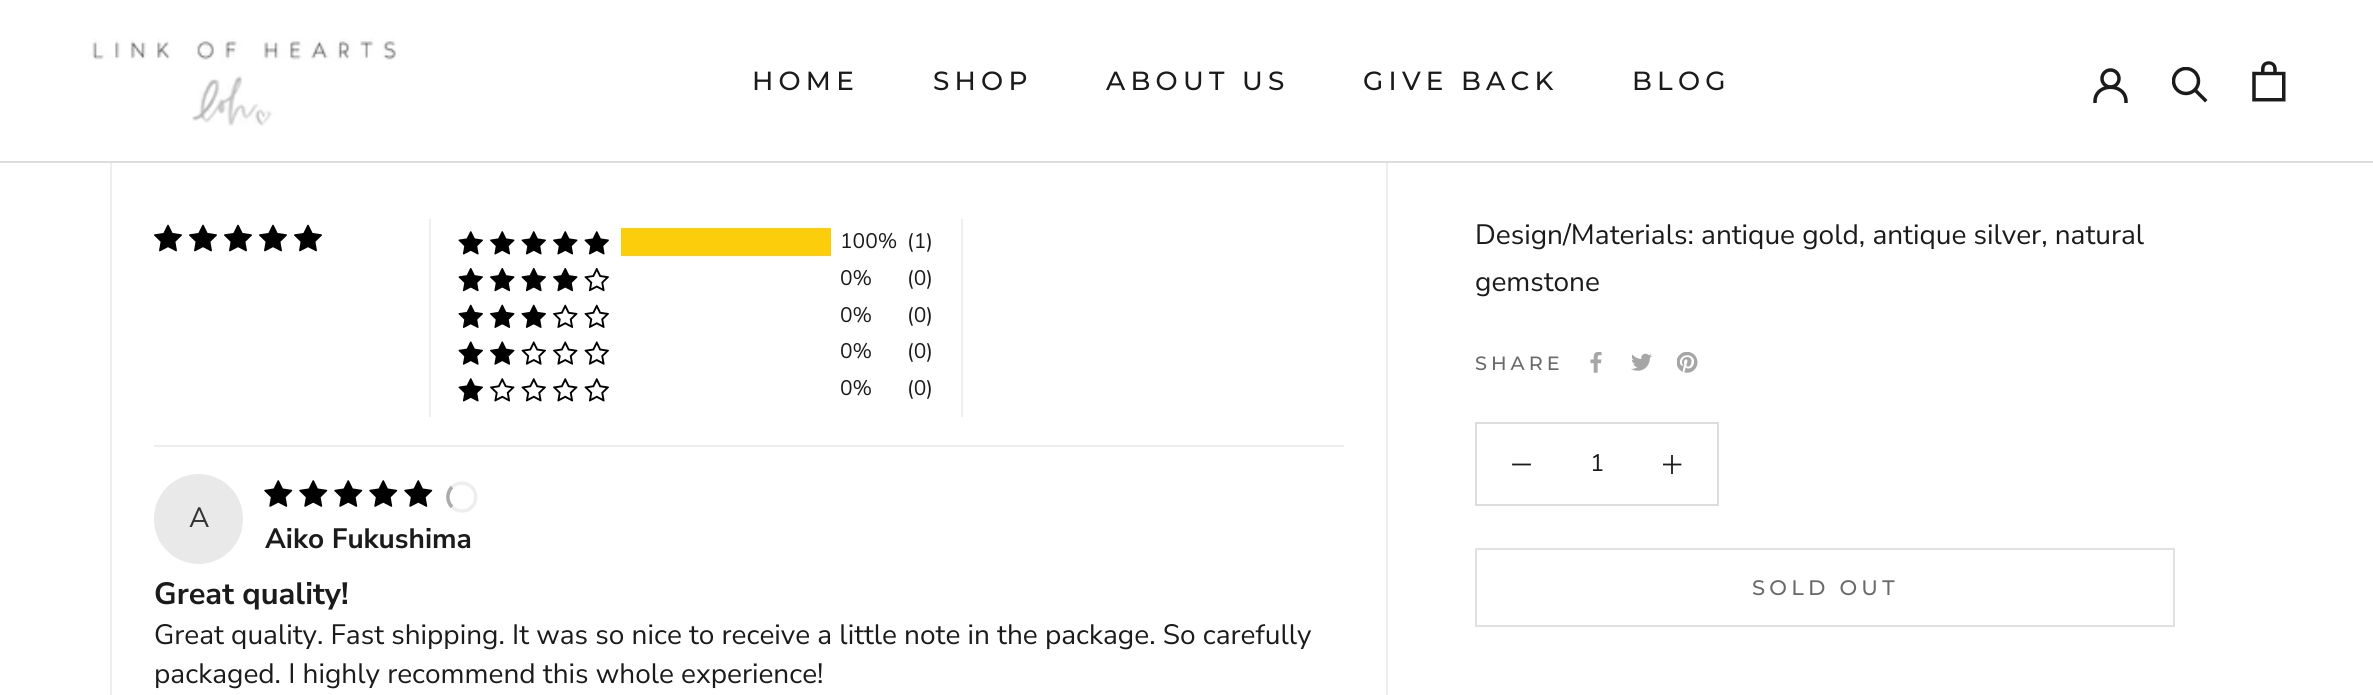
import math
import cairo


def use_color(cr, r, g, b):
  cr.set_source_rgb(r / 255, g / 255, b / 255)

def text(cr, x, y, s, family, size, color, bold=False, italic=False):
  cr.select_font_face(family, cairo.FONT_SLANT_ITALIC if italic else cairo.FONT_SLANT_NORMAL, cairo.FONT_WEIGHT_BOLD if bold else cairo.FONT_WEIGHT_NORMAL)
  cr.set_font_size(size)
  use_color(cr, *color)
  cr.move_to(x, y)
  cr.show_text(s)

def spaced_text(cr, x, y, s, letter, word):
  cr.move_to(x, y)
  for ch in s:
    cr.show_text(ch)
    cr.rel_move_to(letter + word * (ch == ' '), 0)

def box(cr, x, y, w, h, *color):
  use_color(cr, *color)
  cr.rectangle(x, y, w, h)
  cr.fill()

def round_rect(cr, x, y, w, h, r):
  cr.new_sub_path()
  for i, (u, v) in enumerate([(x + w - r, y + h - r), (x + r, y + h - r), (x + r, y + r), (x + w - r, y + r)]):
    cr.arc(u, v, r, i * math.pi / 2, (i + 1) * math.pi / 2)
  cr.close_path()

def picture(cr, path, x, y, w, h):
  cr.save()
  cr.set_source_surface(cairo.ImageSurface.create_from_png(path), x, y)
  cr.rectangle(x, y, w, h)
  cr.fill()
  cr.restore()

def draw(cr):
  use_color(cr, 255, 255, 255)
  cr.paint()
  cr.rectangle(111, 124, 1276, 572)
  use_color(cr, 238, 238, 238)
  cr.stroke()
  box(cr, 110, 123, 1278, 38, 255, 255, 255)
  box(cr, 0, 161, 2373, 2, 221, 221, 221)
  picture(cr, "img_01.png", 88, 38, 308, 88)
  cr.save()
  cr.rectangle(2093, 68, 35, 35)
  cr.clip()
  cr.new_path()
  cr.move_to(2095, 101.5)
  cr.curve_to(2095, 82.5, 2126, 82.5, 2126, 101.5)
  use_color(cr, 28, 27, 27)
  cr.set_line_width(3.5)
  cr.set_line_cap(cairo.LINE_CAP_SQUARE)
  cr.stroke()
  cr.restore()
  cr.arc(2110.5, 78.5, 8.5, 0, 2 * math.pi)
  use_color(cr, 28, 27, 27)
  cr.set_line_width(3.5)
  cr.stroke()
  cr.new_path()
  cr.move_to(2205, 100)
  cr.line_to(2195, 90)
  cr.set_line_cap(cairo.LINE_CAP_SQUARE)
  cr.stroke()
  cr.save()
  cr.rectangle(2172, 67, 37, 36)
  cr.clip()
  cr.arc(2186, 81, 12.5, 0, 2 * math.pi)
  cr.set_line_cap(cairo.LINE_CAP_BUTT)
  cr.stroke()
  cr.restore()
  picture(cr, "img_02.png", 2252, 61, 34, 41)
  picture(cr, "img_03.png", 154, 224, 28, 28)
  picture(cr, "img_03.png", 189, 224, 28, 28)
  picture(cr, "img_03.png", 224, 224, 28, 28)
  picture(cr, "img_03.png", 259, 224, 28, 28)
  picture(cr, "img_03.png", 294, 224, 28, 28)
  box(cr, 961, 219, 2, 198, 238, 238, 238)
  box(cr, 429, 219, 2, 198, 238, 238, 238)
  picture(cr, "img_04.png", 458, 231, 25, 24)
  picture(cr, "img_05.png", 490, 231, 25, 24)
  picture(cr, "img_04.png", 521, 231, 25, 24)
  picture(cr, "img_05.png", 553, 231, 25, 24)
  picture(cr, "img_04.png", 584, 231, 25, 24)
  box(cr, 621, 228, 210, 28, 251, 205, 10)
  picture(cr, "img_06.png", 458, 267, 25, 25)
  picture(cr, "img_07.png", 490, 267, 25, 25)
  picture(cr, "img_06.png", 521, 267, 25, 25)
  picture(cr, "img_07.png", 553, 267, 25, 25)
  picture(cr, "img_08.png", 584, 267, 25, 25)
  picture(cr, "img_09.png", 458, 304, 25, 24)
  picture(cr, "img_10.png", 490, 304, 25, 24)
  picture(cr, "img_09.png", 521, 304, 25, 24)
  picture(cr, "img_11.png", 553, 304, 25, 24)
  picture(cr, "img_12.png", 584, 304, 25, 24)
  picture(cr, "img_13.png", 458, 341, 25, 24)
  picture(cr, "img_14.png", 490, 341, 25, 24)
  picture(cr, "img_15.png", 521, 341, 25, 24)
  picture(cr, "img_16.png", 553, 341, 25, 24)
  picture(cr, "img_15.png", 584, 341, 25, 24)
  picture(cr, "img_04.png", 458, 378, 25, 24)
  picture(cr, "img_17.png", 490, 378, 25, 24)
  picture(cr, "img_18.png", 521, 378, 25, 24)
  picture(cr, "img_17.png", 553, 378, 25, 24)
  picture(cr, "img_18.png", 584, 378, 25, 24)
  box(cr, 154, 445, 1190, 2, 238, 238, 238)
  picture(cr, "img_19.png", 264, 480, 29, 27)
  picture(cr, "img_19.png", 299, 480, 29, 27)
  picture(cr, "img_19.png", 334, 480, 29, 27)
  picture(cr, "img_19.png", 369, 480, 29, 27)
  picture(cr, "img_19.png", 404, 480, 29, 27)
  cr.new_path()
  cr.move_to(452, 487)
  cr.curve_to(455.5, 484, 460, 482.5, 464.5, 483.5)
  cr.curve_to(481, 486.5, 478.5, 511, 462, 511)
  cr.curve_to(458.5, 511, 454.5, 509.5, 452, 507)
  cr.set_line_cap(cairo.LINE_CAP_BUTT)
  cr.stroke()
  cr.new_path()
  cr.move_to(452, 507)
  cr.curve_to(446.5, 501.5, 446.5, 492.5, 452, 487)
  use_color(cr, 170, 170, 170)
  cr.stroke()
  use_color(cr, 233, 233, 233)
  round_rect(cr, 154, 474, 89, 90, 44.5)
  cr.fill()
  picture(cr, "img_20.png", 1590, 352, 12, 21)
  picture(cr, "img_21.png", 1631, 353, 21, 18)
  picture(cr, "img_22.png", 1677, 352, 21, 21)
  cr.rectangle(1476, 423, 242, 82)
  use_color(cr, 221, 221, 221)
  cr.set_line_width(2)
  cr.stroke()
  cr.new_path()
  cr.move_to(1513, 464.5)
  cr.line_to(1530, 464.5)
  use_color(cr, 28, 27, 27)
  cr.set_line_width(1.8)
  cr.set_line_cap(cairo.LINE_CAP_SQUARE)
  cr.stroke()
  box(cr, 1671, 455, 2, 19, 51, 50, 50)
  cr.save()
  cr.rectangle(1663, 455, 19, 19)
  cr.clip()
  cr.new_path()
  cr.move_to(1663.5, 464.5)
  cr.line_to(1680.5, 464.5)
  use_color(cr, 28, 27, 27)
  cr.stroke()
  cr.restore()
  cr.rectangle(1476, 549, 698, 77)
  use_color(cr, 225, 225, 225)
  cr.set_line_width(2)
  cr.set_line_cap(cairo.LINE_CAP_BUTT)
  cr.stroke()
  cr.select_font_face("Montserrat Medium")
  cr.set_font_size(26.25)
  use_color(cr, 28, 27, 27)
  spaced_text(cr, 752, 90, "HOME", 5.25, 0)
  spaced_text(cr, 933, 90, "SHOP", 5.25, 0)
  spaced_text(cr, 1106, 90, "ABOUT US", 5.25, 0)
  spaced_text(cr, 1363, 90, "GIVE BACK", 5.25, 0)
  spaced_text(cr, 1632, 90, "BLOG", 5.25, 0)
  text(cr, 840, 248, "100%", "Nunito Sans", 21, (28, 27, 27))
  text(cr, 907, 248, "(1)", "Nunito Sans", 21, (28, 27, 27))
  text(cr, 840, 285, "0%", "Nunito Sans", 21, (28, 27, 27))
  text(cr, 907, 285, "(0)", "Nunito Sans", 21, (28, 27, 27))
  text(cr, 840, 322, "0%", "Nunito Sans", 21, (28, 27, 27))
  text(cr, 907, 322, "(0)", "Nunito Sans", 21, (28, 27, 27))
  text(cr, 840, 358, "0%", "Nunito Sans", 21, (28, 27, 27))
  text(cr, 907, 358, "(0)", "Nunito Sans", 21, (28, 27, 27))
  text(cr, 840, 395, "0%", "Nunito Sans", 21, (28, 27, 27))
  text(cr, 907, 395, "(0)", "Nunito Sans", 21, (28, 27, 27))
  text(cr, 189, 527, "A", "Nunito Sans", 28, (51, 51, 51))
  text(cr, 265, 548, "Aiko Fukushima", "Nunito Sans", 28, (28, 27, 27), bold=True)
  text(cr, 154, 604, "Great quality!", "Nunito Sans", 30.75, (28, 27, 27), bold=True)
  text(cr, 154, 644, "Great quality. Fast shipping. It was so nice to receive a little note in the package. So carefully", "Nunito Sans", 28, (28, 27, 27))
  text(cr, 154, 683, "packaged. I highly recommend this whole experience!", "Nunito Sans", 28, (28, 27, 27))
  text(cr, 1475, 244, "Design/Materials: antique gold, antique silver, natural", "Nunito Sans", 28, (28, 27, 27))
  text(cr, 1475, 291, "gemstone", "Nunito Sans", 28, (28, 27, 27))
  cr.select_font_face("Montserrat Medium")
  cr.set_font_size(19.25)
  use_color(cr, 106, 106, 106)
  spaced_text(cr, 1475, 370, "SHARE", 4, 0)
  text(cr, 1590, 471, "1", "Nunito Sans", 24, (28, 27, 27))
  cr.select_font_face("Montserrat Medium")
  cr.set_font_size(21)
  use_color(cr, 106, 106, 106)
  spaced_text(cr, 1752, 595, "SOLD OUT", 4.25, 0)


surface = cairo.ImageSurface(cairo.FORMAT_RGB24, 2373, 695)
cr = cairo.Context(surface)
options = cairo.FontOptions()
options.set_hint_metrics(cairo.HINT_METRICS_OFF)
options.set_hint_style(cairo.HINT_STYLE_NONE)
cr.set_font_options(options)
cr.set_miter_limit(4)
draw(cr)
surface.write_to_png("out.png")
